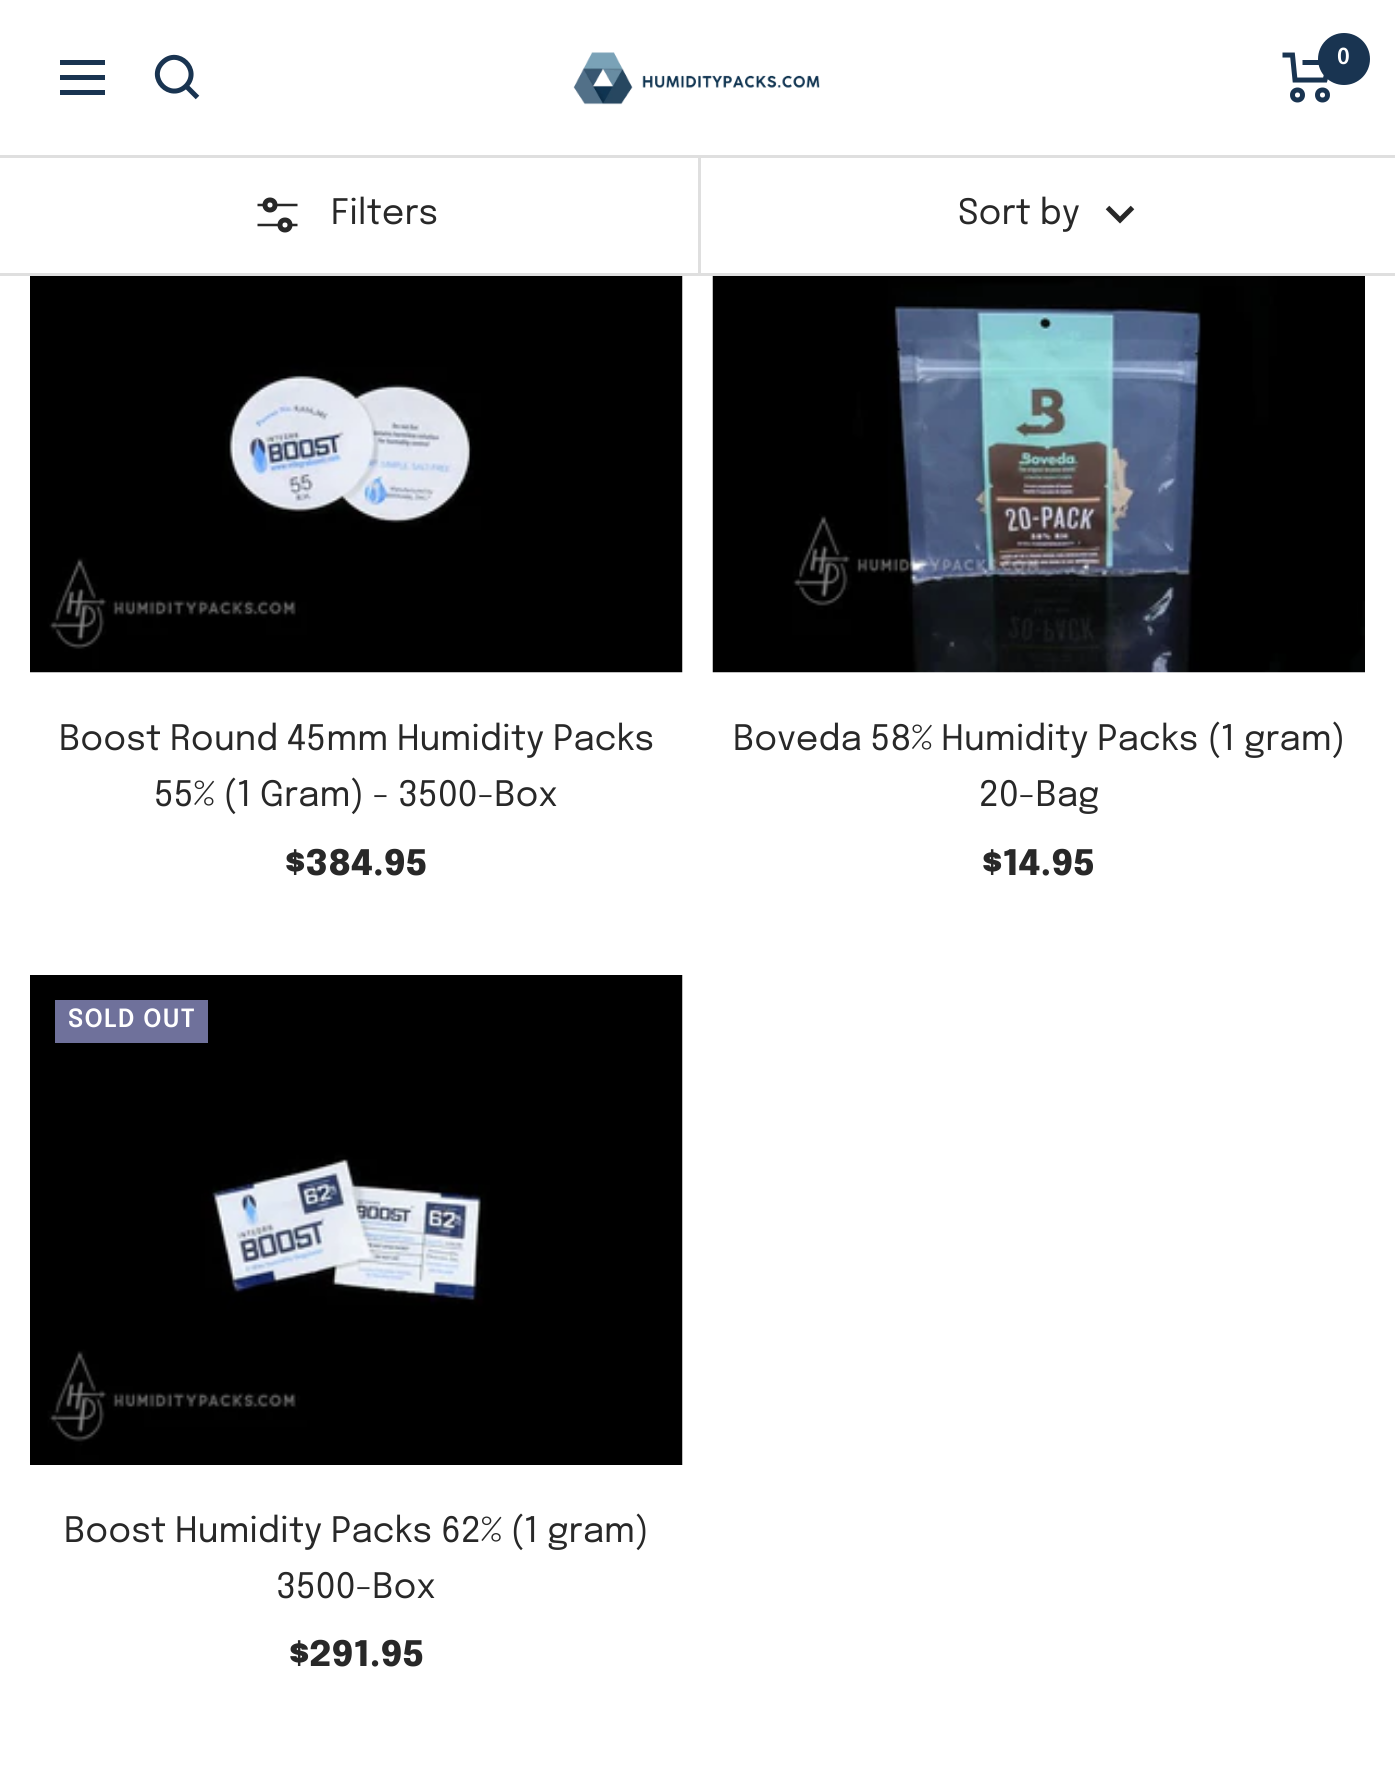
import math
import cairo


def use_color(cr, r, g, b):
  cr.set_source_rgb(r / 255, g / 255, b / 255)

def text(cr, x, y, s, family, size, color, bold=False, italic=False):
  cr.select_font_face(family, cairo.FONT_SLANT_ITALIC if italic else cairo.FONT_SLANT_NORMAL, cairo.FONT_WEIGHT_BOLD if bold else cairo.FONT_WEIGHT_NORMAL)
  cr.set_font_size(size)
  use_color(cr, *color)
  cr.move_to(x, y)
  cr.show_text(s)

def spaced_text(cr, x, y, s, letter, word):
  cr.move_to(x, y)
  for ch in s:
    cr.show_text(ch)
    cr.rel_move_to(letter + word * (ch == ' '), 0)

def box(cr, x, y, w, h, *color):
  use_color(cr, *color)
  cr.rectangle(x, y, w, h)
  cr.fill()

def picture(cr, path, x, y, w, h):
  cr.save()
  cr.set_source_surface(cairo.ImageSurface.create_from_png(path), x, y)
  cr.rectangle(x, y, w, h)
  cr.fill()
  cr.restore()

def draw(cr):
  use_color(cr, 255, 255, 255)
  cr.paint()
  cr.new_path()
  cr.move_to(60, 62.5)
  cr.line_to(105, 62.5)
  cr.move_to(60, 92.5)
  cr.line_to(105, 92.5)
  cr.close_path()
  cr.move_to(60, 77.5)
  cr.line_to(105, 77.5)
  cr.close_path()
  use_color(cr, 25, 52, 81)
  cr.set_line_width(5)
  cr.stroke()
  cr.new_path()
  cr.move_to(186, 86)
  cr.curve_to(201.5, 70, 178, 47, 162.5, 62.5)
  cr.curve_to(147, 78, 170, 101.5, 186, 86)
  cr.close_path()
  cr.move_to(186, 86)
  cr.line_to(197.5, 97.5)
  cr.stroke()
  picture(cr, "img_01.png", 573, 52, 247, 53)
  cr.new_path()
  cr.move_to(1282.5, 55)
  cr.line_to(1292.5, 55)
  cr.line_to(1295, 80)
  cr.line_to(1325, 80)
  cr.line_to(1330, 62.5)
  cr.line_to(1302.5, 62.5)
  cr.stroke()
  cr.arc(1297.5, 95, 5, 0, 2 * math.pi)
  cr.stroke()
  cr.arc(1322.5, 95, 5, 0, 2 * math.pi)
  cr.stroke()
  cr.arc(1344, 59, 26, 0, 2 * math.pi)
  cr.fill()
  box(cr, 0, 155, 1395, 3, 223, 223, 223)
  box(cr, 0, 273, 1395, 3, 223, 223, 223)
  cr.new_path()
  cr.move_to(257.5, 205)
  cr.line_to(297.5, 205)
  cr.move_to(257.5, 225)
  cr.line_to(297.5, 225)
  use_color(cr, 40, 40, 40)
  cr.set_line_width(2.5)
  cr.stroke()
  use_color(cr, 255, 255, 255)
  cr.arc(270, 205, 5, 0, 2 * math.pi)
  cr.fill_preserve()
  use_color(cr, 40, 40, 40)
  cr.set_line_width(5)
  cr.stroke()
  use_color(cr, 255, 255, 255)
  cr.arc(285, 225, 5, 0, 2 * math.pi)
  cr.fill_preserve()
  use_color(cr, 40, 40, 40)
  cr.stroke()
  box(cr, 698, 155, 3, 120, 223, 223, 223)
  cr.new_path()
  cr.move_to(1107.5, 207.5)
  cr.line_to(1120, 220)
  cr.line_to(1132.5, 207.5)
  use_color(cr, 40, 40, 40)
  cr.stroke()
  picture(cr, "img_02.png", 30, 276, 653, 397)
  picture(cr, "img_03.png", 712, 276, 653, 397)
  picture(cr, "img_04.png", 30, 975, 653, 490)
  box(cr, 55, 1000, 153, 43, 111, 113, 155)
  text(cr, 1337, 64, "0", "Epilogue SemiBold", 22, (255, 255, 255))
  text(cr, 331, 224, "Filters", "Epilogue", 35, (40, 40, 40))
  text(cr, 958, 224, "Sort by", "Epilogue", 35, (40, 40, 40))
  text(cr, 59, 750, "Boost Round 45mm Humidity Packs", "Epilogue", 35, (40, 40, 40))
  text(cr, 154, 806, "55% (1 Gram) - 3500-Box", "Epilogue", 35, (40, 40, 40))
  text(cr, 285, 875, "$384.95", "Epilogue ExtraBold", 35, (40, 40, 40))
  text(cr, 733, 750, "Boveda 58% Humidity Packs (1 gram)", "Epilogue", 35, (40, 40, 40))
  text(cr, 979, 806, "20-Bag", "Epilogue", 35, (40, 40, 40))
  text(cr, 982, 875, "$14.95", "Epilogue ExtraBold", 35, (40, 40, 40))
  cr.select_font_face("Epilogue SemiBold")
  cr.set_font_size(25)
  use_color(cr, 255, 255, 255)
  spaced_text(cr, 68, 1027, "SOLD OUT", 1.25, 0)
  text(cr, 64, 1542, "Boost Humidity Packs 62% (1 gram)", "Epilogue", 35, (40, 40, 40))
  text(cr, 276, 1598, "3500-Box", "Epilogue", 35, (40, 40, 40))
  text(cr, 289, 1666, "$291.95", "Epilogue ExtraBold", 35, (40, 40, 40))


surface = cairo.ImageSurface(cairo.FORMAT_RGB24, 1395, 1771)
cr = cairo.Context(surface)
options = cairo.FontOptions()
options.set_hint_metrics(cairo.HINT_METRICS_OFF)
options.set_hint_style(cairo.HINT_STYLE_NONE)
cr.set_font_options(options)
cr.set_miter_limit(4)
draw(cr)
surface.write_to_png("out.png")
